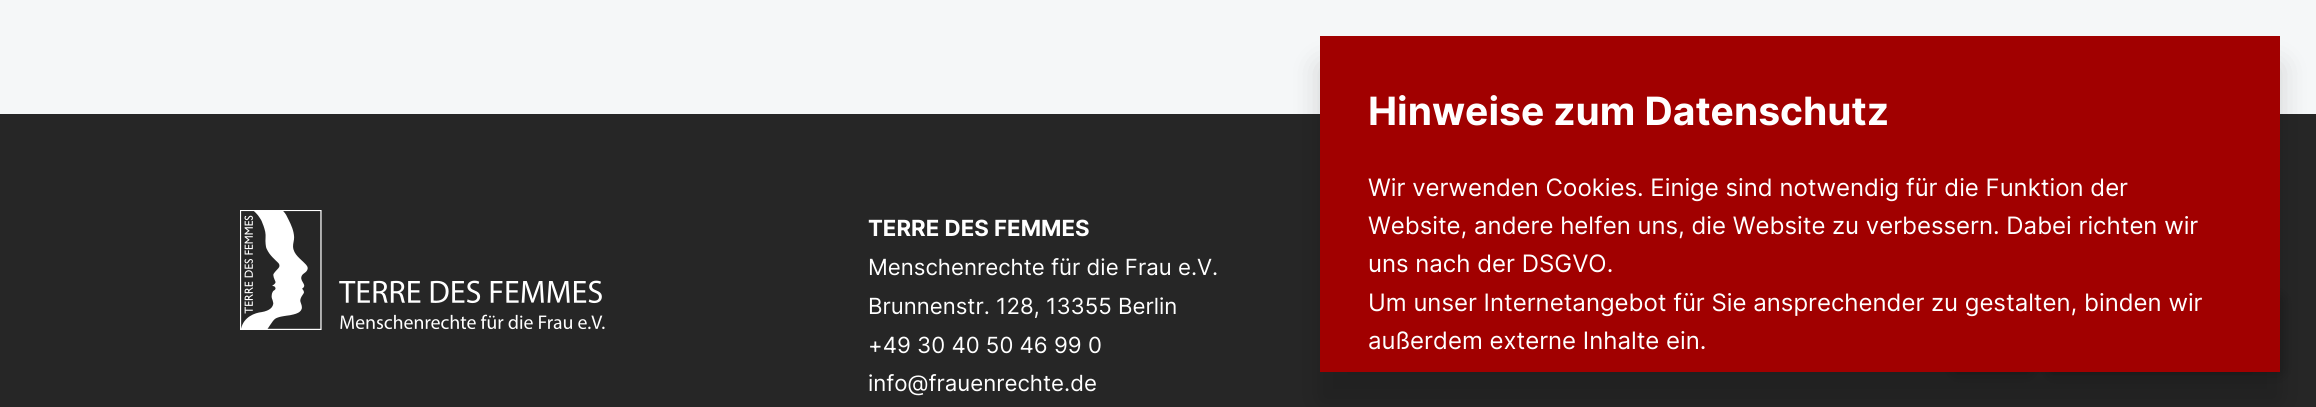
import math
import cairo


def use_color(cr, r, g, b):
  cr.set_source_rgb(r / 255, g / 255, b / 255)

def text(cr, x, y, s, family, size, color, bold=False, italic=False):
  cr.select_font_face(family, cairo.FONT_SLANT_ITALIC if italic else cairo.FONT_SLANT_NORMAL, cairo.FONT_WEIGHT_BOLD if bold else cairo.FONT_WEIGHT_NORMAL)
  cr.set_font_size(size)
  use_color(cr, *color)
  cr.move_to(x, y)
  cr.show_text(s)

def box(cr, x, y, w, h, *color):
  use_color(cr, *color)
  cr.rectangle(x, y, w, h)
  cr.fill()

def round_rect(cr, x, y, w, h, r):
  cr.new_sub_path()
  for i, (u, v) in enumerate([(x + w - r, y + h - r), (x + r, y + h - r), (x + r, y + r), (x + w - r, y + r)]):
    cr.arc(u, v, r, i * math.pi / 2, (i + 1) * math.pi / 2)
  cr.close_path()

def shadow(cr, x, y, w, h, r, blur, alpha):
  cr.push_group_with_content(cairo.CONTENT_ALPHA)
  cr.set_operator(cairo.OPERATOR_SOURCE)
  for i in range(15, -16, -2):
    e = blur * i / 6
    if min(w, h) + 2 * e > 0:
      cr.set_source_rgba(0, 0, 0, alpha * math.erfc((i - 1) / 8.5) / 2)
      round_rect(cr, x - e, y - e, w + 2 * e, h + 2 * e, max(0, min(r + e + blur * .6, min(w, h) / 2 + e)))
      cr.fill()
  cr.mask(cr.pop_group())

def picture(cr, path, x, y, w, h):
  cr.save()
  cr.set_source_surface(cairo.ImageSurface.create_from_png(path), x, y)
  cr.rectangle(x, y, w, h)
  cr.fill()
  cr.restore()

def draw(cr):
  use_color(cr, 245, 247, 248)
  cr.paint()
  box(cr, 0, 114, 2316, 293, 38, 38, 38)
  picture(cr, "img_01.png", 240, 210, 365, 120)
  use_color(cr, 0, 0, 0)
  shadow(cr, 1320, 66, 960, 336, 0, 15, 0.15)
  shadow(cr, 1956, 299, 72, 72, 0, 7.5, 0.3)
  shadow(cr, 2052, 299, 228, 73, 0, 7.5, 0.3)
  box(cr, 1320, 36, 960, 336, 161, 0, 0)
  text(cr, 868, 236, "TERRE DES FEMMES", "Inter", 22.25, (255, 255, 255), bold=True)
  text(cr, 868, 275, "Menschenrechte für die Frau e.V.", "Inter", 22.25, (255, 255, 255))
  text(cr, 868, 314, "Brunnenstr. 128, 13355 Berlin", "Inter", 22.25, (255, 255, 255))
  text(cr, 868, 353, "+49 30 40 50 46 99 0", "Inter", 22.25, (255, 255, 255))
  text(cr, 868, 391, "info@frauenrechte.de", "Inter", 22.25, (255, 255, 255))
  text(cr, 1368, 125, "Hinweise zum Datenschutz", "Inter", 39, (255, 255, 255), bold=True)
  text(cr, 1368, 196, "Wir verwenden Cookies. Einige sind notwendig für die Funktion der", "Inter", 24, (255, 255, 255))
  text(cr, 1368, 234, "Website, andere helfen uns, die Website zu verbessern. Dabei richten wir", "Inter", 24, (255, 255, 255))
  text(cr, 1368, 272, "uns nach der DSGVO.", "Inter", 24, (255, 255, 255))
  text(cr, 1368, 311, "Um unser Internetangebot für Sie ansprechender zu gestalten, binden wir", "Inter", 24, (255, 255, 255))
  text(cr, 1368, 349, "außerdem externe Inhalte ein.", "Inter", 24, (255, 255, 255))


surface = cairo.ImageSurface(cairo.FORMAT_RGB24, 2316, 407)
cr = cairo.Context(surface)
options = cairo.FontOptions()
options.set_hint_metrics(cairo.HINT_METRICS_OFF)
options.set_hint_style(cairo.HINT_STYLE_NONE)
cr.set_font_options(options)
cr.set_miter_limit(4)
draw(cr)
surface.write_to_png("out.png")
